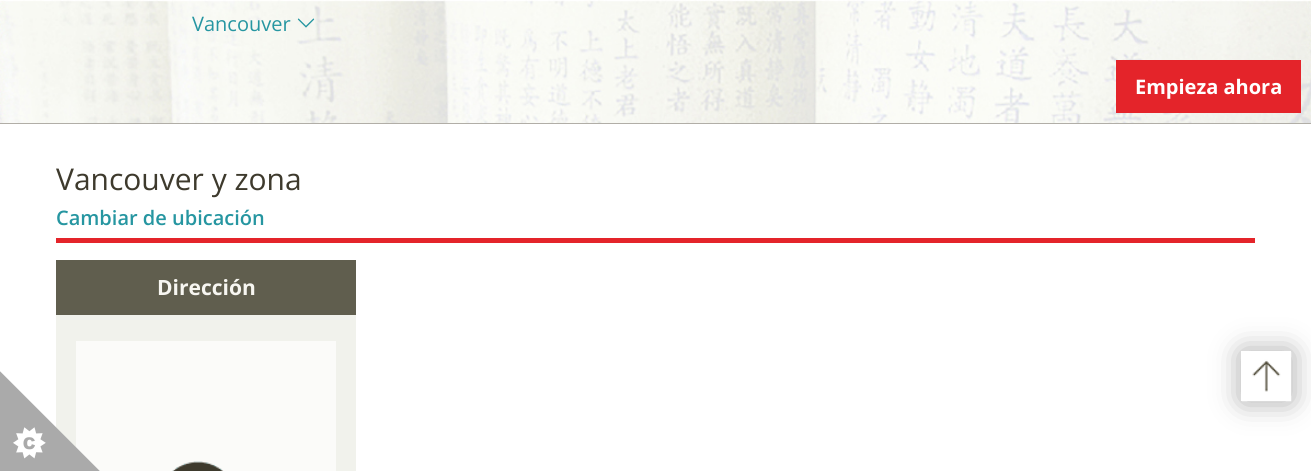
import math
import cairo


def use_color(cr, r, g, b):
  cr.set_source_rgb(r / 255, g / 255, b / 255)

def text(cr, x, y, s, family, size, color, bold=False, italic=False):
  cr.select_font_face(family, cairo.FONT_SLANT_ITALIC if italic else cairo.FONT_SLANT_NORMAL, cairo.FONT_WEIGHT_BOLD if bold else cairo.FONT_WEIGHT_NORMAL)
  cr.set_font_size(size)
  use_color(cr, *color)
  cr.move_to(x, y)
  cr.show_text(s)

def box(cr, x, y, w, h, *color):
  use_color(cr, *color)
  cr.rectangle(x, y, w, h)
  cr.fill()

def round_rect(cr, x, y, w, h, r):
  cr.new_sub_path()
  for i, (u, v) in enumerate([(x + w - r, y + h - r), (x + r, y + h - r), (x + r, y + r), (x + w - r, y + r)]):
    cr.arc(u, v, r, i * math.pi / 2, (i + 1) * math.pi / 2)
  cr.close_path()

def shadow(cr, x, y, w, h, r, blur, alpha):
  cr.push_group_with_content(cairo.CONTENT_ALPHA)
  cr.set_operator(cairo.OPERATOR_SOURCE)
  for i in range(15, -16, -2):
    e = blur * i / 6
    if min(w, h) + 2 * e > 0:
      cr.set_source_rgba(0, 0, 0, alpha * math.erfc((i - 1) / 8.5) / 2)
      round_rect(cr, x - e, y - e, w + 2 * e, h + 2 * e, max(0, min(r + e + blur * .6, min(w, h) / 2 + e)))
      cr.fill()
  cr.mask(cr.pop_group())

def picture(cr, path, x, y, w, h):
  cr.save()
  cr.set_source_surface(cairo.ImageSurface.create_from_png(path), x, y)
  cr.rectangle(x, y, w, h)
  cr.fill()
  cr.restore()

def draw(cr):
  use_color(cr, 255, 255, 255)
  cr.paint()
  picture(cr, "img_01.png", 0, 0, 1311, 123)
  box(cr, 0, 123, 1311, 1, 177, 174, 167)
  picture(cr, "img_02.png", 297, 18, 18, 10)
  box(cr, 1116, 60, 185, 53, 228, 36, 42)
  box(cr, 56, 238, 1199, 5, 228, 36, 42)
  box(cr, 56, 315, 300, 156, 241, 242, 236)
  box(cr, 56, 260, 300, 55, 96, 94, 78)
  box(cr, 76, 341, 260, 130, 251, 251, 249)
  picture(cr, "img_03.png", 172, 461, 52, 10)
  picture(cr, "img_04.png", 0, 371, 100, 100)
  use_color(cr, 74, 74, 74)
  shadow(cr, 1243, 353, 47, 47, 0, 14.5, 0.56)
  box(cr, 1241, 351, 50, 50, 255, 255, 255)
  picture(cr, "img_05.png", 1242, 352, 50, 50)
  text(cr, 192, 31, "Vancouver", "Open Sans", 20, (38, 150, 161))
  text(cr, 1135, 94, "Empieza ahora", "Open Sans", 20, (255, 255, 255), bold=True)
  text(cr, 56, 190, "Vancouver y zona", "Open Sans", 30, (62, 58, 45))
  text(cr, 56, 225, "Cambiar de ubicación", "Open Sans SemiBold", 20, (38, 150, 161))
  text(cr, 157, 295, "Dirección", "Open Sans", 21, (247, 246, 241), bold=True)


surface = cairo.ImageSurface(cairo.FORMAT_RGB24, 1311, 471)
cr = cairo.Context(surface)
options = cairo.FontOptions()
options.set_hint_metrics(cairo.HINT_METRICS_OFF)
options.set_hint_style(cairo.HINT_STYLE_NONE)
cr.set_font_options(options)
cr.set_miter_limit(4)
draw(cr)
surface.write_to_png("out.png")
